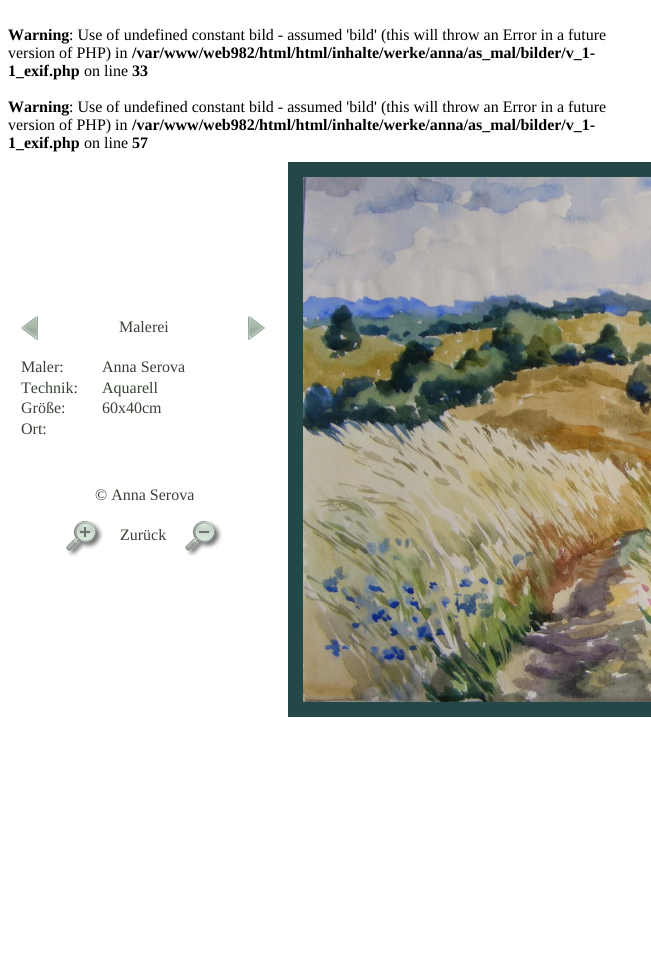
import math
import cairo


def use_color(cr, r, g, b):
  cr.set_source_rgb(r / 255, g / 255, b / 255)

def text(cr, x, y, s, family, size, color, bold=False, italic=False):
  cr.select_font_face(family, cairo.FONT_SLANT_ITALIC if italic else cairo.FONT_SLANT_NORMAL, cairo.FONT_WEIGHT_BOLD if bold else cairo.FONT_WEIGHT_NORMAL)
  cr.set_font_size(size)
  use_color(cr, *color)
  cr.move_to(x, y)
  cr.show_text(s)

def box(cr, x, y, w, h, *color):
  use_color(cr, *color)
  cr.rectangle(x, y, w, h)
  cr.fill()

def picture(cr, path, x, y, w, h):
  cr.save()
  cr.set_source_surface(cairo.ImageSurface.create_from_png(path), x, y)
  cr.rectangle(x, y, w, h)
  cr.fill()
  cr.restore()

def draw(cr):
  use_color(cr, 255, 255, 255)
  cr.paint()
  picture(cr, "img_01.png", 21, 316, 17, 24)
  picture(cr, "img_02.png", 248, 316, 17, 24)
  picture(cr, "img_03.png", 66, 520, 37, 37)
  picture(cr, "img_04.png", 185, 520, 37, 37)
  box(cr, 288, 162, 363, 555, 36, 72, 72)
  picture(cr, "img_05.png", 303, 177, 348, 525)
  text(cr, 8, 40, "Warning", "Liberation Serif", 16, (0, 0, 0), bold=True)
  text(cr, 69, 40, ": Use of undefined constant bild - assumed 'bild' (this will throw an Error in a future", "Liberation Serif", 16, (0, 0, 0))
  text(cr, 8, 58, "version of PHP) in", "Liberation Serif", 16, (0, 0, 0))
  text(cr, 132, 58, "/var/www/web982/html/html/inhalte/werke/anna/as_mal/bilder/v_1-", "Liberation Serif", 16, (0, 0, 0), bold=True)
  text(cr, 8, 76, "1_exif.php", "Liberation Serif", 16, (0, 0, 0), bold=True)
  text(cr, 84, 76, "on line", "Liberation Serif", 16, (0, 0, 0))
  text(cr, 132, 76, "33", "Liberation Serif", 16, (0, 0, 0), bold=True)
  text(cr, 8, 112, "Warning", "Liberation Serif", 16, (0, 0, 0), bold=True)
  text(cr, 69, 112, ": Use of undefined constant bild - assumed 'bild' (this will throw an Error in a future", "Liberation Serif", 16, (0, 0, 0))
  text(cr, 8, 130, "version of PHP) in", "Liberation Serif", 16, (0, 0, 0))
  text(cr, 132, 130, "/var/www/web982/html/html/inhalte/werke/anna/as_mal/bilder/v_1-", "Liberation Serif", 16, (0, 0, 0), bold=True)
  text(cr, 8, 148, "1_exif.php", "Liberation Serif", 16, (0, 0, 0), bold=True)
  text(cr, 84, 148, "on line", "Liberation Serif", 16, (0, 0, 0))
  text(cr, 132, 148, "57", "Liberation Serif", 16, (0, 0, 0), bold=True)
  text(cr, 119, 332, "Malerei", "Liberation Serif", 16, (55, 66, 53))
  text(cr, 21, 372, "Maler:", "Liberation Serif", 16, (55, 66, 53))
  text(cr, 102, 372, "Anna Serova", "Liberation Serif", 16, (55, 66, 53))
  text(cr, 21, 393, "Technik:", "Liberation Serif", 16, (55, 66, 53))
  text(cr, 102, 393, "Aquarell", "Liberation Serif", 16, (55, 66, 53))
  text(cr, 21, 413, "Größe:", "Liberation Serif", 16, (55, 66, 53))
  text(cr, 102, 413, "60x40cm", "Liberation Serif", 16, (55, 66, 53))
  text(cr, 21, 434, "Ort:", "Liberation Serif", 16, (55, 66, 53))
  text(cr, 95, 500, "© Anna Serova", "Liberation Serif", 16, (55, 66, 53))
  text(cr, 120, 540, "Zurück", "Liberation Serif", 16, (55, 66, 53))


surface = cairo.ImageSurface(cairo.FORMAT_RGB24, 651, 958)
cr = cairo.Context(surface)
options = cairo.FontOptions()
options.set_hint_metrics(cairo.HINT_METRICS_OFF)
options.set_hint_style(cairo.HINT_STYLE_NONE)
cr.set_font_options(options)
cr.set_miter_limit(4)
draw(cr)
surface.write_to_png("out.png")
